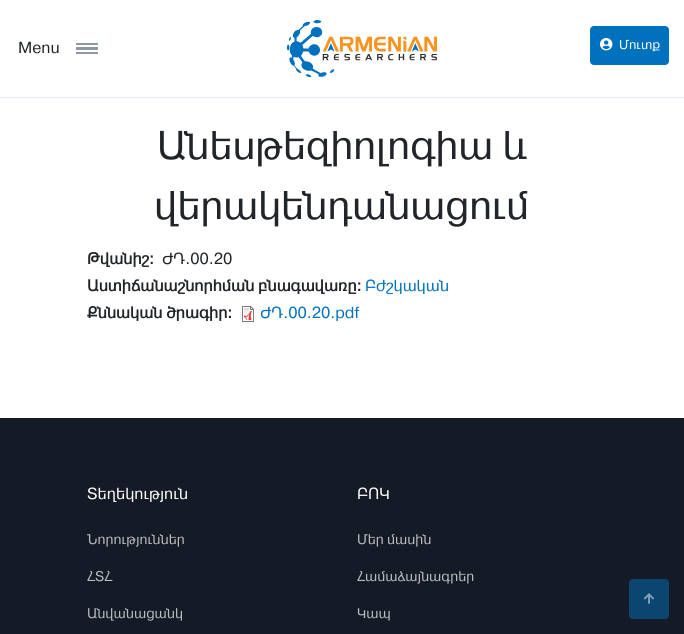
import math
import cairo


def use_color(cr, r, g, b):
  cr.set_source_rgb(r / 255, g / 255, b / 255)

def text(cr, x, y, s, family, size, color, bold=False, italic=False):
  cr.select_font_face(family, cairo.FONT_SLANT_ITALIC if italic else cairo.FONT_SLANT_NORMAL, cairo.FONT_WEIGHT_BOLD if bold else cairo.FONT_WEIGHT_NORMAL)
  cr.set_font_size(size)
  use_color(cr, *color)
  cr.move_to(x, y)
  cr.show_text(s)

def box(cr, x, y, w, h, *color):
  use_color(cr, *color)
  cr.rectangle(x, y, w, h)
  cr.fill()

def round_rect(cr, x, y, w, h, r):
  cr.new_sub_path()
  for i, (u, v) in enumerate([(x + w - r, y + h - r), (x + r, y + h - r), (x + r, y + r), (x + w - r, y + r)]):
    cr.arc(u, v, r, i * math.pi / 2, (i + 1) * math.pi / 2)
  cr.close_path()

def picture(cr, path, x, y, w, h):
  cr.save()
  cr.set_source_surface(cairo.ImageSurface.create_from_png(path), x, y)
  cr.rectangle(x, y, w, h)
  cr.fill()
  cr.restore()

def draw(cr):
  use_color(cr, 255, 255, 255)
  cr.paint()
  box(cr, 0, 97, 684, 1, 227, 230, 240)
  box(cr, 76, 43, 22, 2, 140, 152, 164)
  box(cr, 76, 47, 22, 3, 140, 152, 164)
  box(cr, 76, 52, 22, 2, 140, 152, 164)
  picture(cr, "img_01.png", 287, 20, 150, 57)
  use_color(cr, 0, 113, 188)
  round_rect(cr, 590.5, 26.5, 78, 38, 3.5)
  cr.fill_preserve()
  cr.set_line_width(1)
  cr.stroke()
  picture(cr, "img_02.png", 600, 38, 13, 13)
  picture(cr, "img_03.png", 242, 306, 12, 16)
  box(cr, 0, 418, 684, 216, 21, 27, 38)
  use_color(cr, 11, 70, 113)
  round_rect(cr, 629, 579, 40, 40, 4)
  cr.fill()
  picture(cr, "img_04.png", 644, 593, 10, 11)
  text(cr, 18, 53, "Menu", "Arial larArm", 16, (33, 37, 41))
  text(cr, 619, 49, "Մուտք", "Arial larArm", 13, (255, 255, 255))
  text(cr, 157, 159, "Անեսթեզիոլոգիա և", "Arial larArm", 40, (33, 37, 41))
  text(cr, 154, 219, "վերակենդանացում", "Arial larArm", 40, (33, 37, 41))
  text(cr, 87, 264, "Թվանիշ:", "Arial larArm", 16, (33, 37, 41), bold=True)
  text(cr, 162, 264, "ԺԴ.00.20", "Arial larArm", 16, (33, 37, 41))
  text(cr, 87, 291, "Աստիճանաշնորհման բնագավառը:", "Arial larArm", 16, (33, 37, 41), bold=True)
  text(cr, 365, 291, "Բժշկական", "Arial larArm", 16, (0, 113, 188))
  text(cr, 87, 318, "Քննական ծրագիր:", "Arial larArm", 16, (33, 37, 41), bold=True)
  text(cr, 260, 318, "ԺԴ.00.20.pdf", "Arial larArm", 16, (0, 113, 188))
  text(cr, 87, 499, "Տեղեկություն", "Arial larArm", 16, (255, 255, 255))
  text(cr, 87, 544, "Նորություններ", "Arial larArm", 14, (185, 187, 190))
  text(cr, 87, 581, "ՀՏՀ", "Arial larArm", 14, (185, 187, 190))
  text(cr, 87, 618, "Անվանացանկ", "Arial larArm", 14, (185, 187, 190))
  text(cr, 357, 499, "ԲՈԿ", "Arial larArm", 16, (255, 255, 255))
  text(cr, 357, 544, "Մեր մասին", "Arial larArm", 14, (185, 187, 190))
  text(cr, 357, 581, "Համաձայնագրեր", "Arial larArm", 14, (185, 187, 190))
  text(cr, 357, 618, "Կապ", "Arial larArm", 14, (185, 187, 190))


surface = cairo.ImageSurface(cairo.FORMAT_RGB24, 684, 634)
cr = cairo.Context(surface)
options = cairo.FontOptions()
options.set_hint_metrics(cairo.HINT_METRICS_OFF)
options.set_hint_style(cairo.HINT_STYLE_NONE)
cr.set_font_options(options)
cr.set_miter_limit(4)
draw(cr)
surface.write_to_png("out.png")
